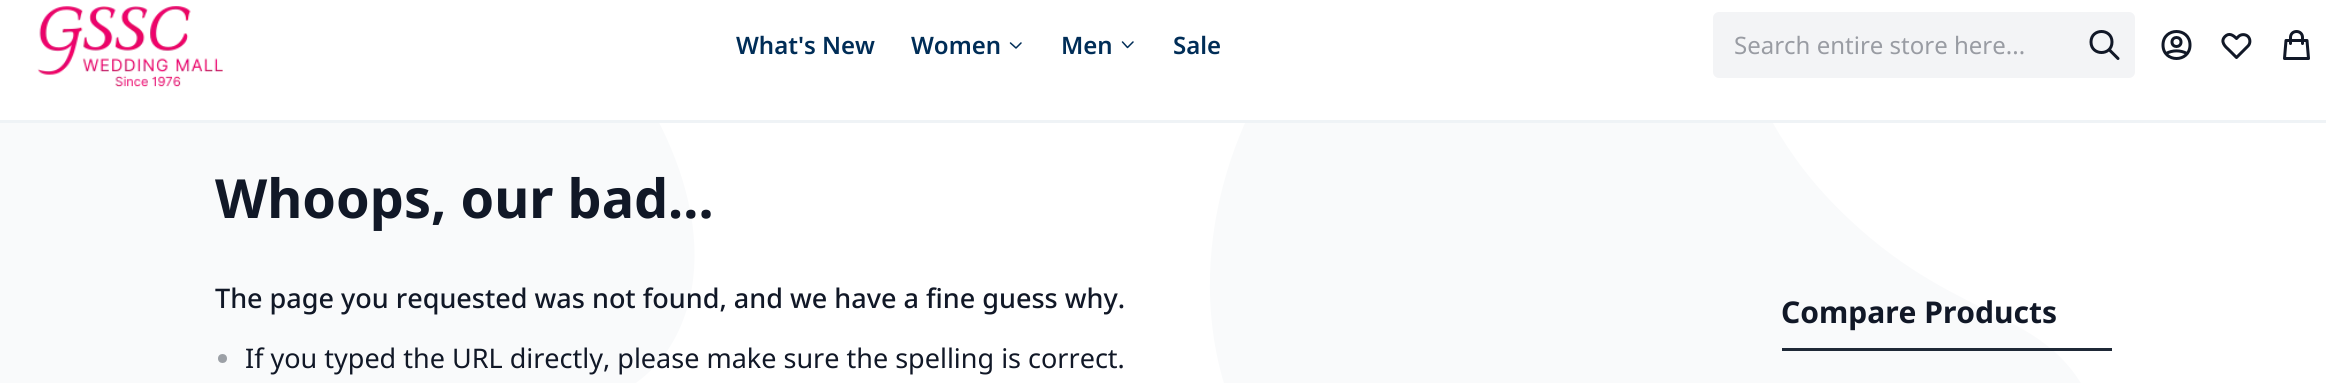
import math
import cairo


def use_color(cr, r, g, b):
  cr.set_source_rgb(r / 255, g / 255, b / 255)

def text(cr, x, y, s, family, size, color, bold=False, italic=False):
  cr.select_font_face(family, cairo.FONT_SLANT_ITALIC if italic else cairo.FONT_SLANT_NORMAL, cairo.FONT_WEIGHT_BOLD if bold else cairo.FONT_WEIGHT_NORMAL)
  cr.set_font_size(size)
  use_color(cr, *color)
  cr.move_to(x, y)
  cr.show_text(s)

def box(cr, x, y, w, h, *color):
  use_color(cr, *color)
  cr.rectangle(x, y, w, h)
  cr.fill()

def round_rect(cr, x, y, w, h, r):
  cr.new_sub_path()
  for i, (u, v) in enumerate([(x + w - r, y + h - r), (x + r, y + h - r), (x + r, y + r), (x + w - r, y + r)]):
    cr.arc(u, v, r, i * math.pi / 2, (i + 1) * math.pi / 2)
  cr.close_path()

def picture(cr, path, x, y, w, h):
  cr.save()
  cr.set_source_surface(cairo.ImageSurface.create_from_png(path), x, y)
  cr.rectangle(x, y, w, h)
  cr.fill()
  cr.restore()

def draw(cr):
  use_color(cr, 255, 255, 255)
  cr.paint()
  use_color(cr, 249, 250, 251)
  cr.new_path()
  cr.move_to(574, 8)
  cr.curve_to(656, 86, 727, 225, 679, 330)
  cr.curve_to(628, 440, 499, 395, 365, 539)
  cr.curve_to(259, 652, 277, 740, 178, 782)
  cr.curve_to(104, 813, -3, 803, -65, 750)
  cr.curve_to(-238, 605, -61, 216, -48, 188)
  cr.curve_to(7, 73, 62, -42, 195, -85)
  cr.curve_to(328, -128, 480, -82, 574, 8)
  cr.close_path()
  cr.fill()
  cr.new_path()
  cr.move_to(1319, 10)
  cr.curve_to(1230, 105, 1183, 257, 1226, 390)
  cr.curve_to(1270, 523, 1384, 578, 1499, 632)
  cr.curve_to(1527, 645, 1916, 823, 2061, 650)
  cr.curve_to(2114, 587, 2124, 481, 2093, 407)
  cr.curve_to(2052, 308, 1963, 326, 1850, 220)
  cr.curve_to(1706, 86, 1751, -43, 1641, -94)
  cr.curve_to(1623, -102, 1603, -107, 1583, -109)
  cr.line_to(1547, -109)
  cr.curve_to(1463, -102, 1375, -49, 1319, 10)
  cr.close_path()
  cr.fill()
  box(cr, 0, 0, 1771, 120, 255, 255, 255)
  box(cr, 0, 120, 2326, 3, 239, 243, 246)
  picture(cr, "img_01.png", 37, 6, 186, 81)
  cr.new_path()
  cr.move_to(1021, 43)
  cr.line_to(1016, 48)
  cr.line_to(1010.5, 43)
  use_color(cr, 0, 45, 87)
  cr.set_line_width(1.5)
  cr.set_line_cap(cairo.LINE_CAP_ROUND)
  cr.set_line_join(cairo.LINE_JOIN_ROUND)
  cr.stroke()
  cr.new_path()
  cr.move_to(1133, 42)
  cr.line_to(1127.5, 47.5)
  cr.line_to(1122.5, 42)
  cr.stroke()
  use_color(cr, 243, 244, 246)
  round_rect(cr, 1714.5, 13.5, 419, 63, 4.5)
  cr.fill_preserve()
  cr.set_line_width(3)
  cr.set_line_cap(cairo.LINE_CAP_BUTT)
  cr.set_line_join(cairo.LINE_JOIN_MITER)
  cr.stroke()
  cr.new_path()
  cr.move_to(2118, 58.5)
  cr.line_to(2109, 49.5)
  cr.move_to(2112, 42)
  cr.curve_to(2112, 56, 2091, 56, 2091, 42)
  cr.curve_to(2091, 28, 2112, 28, 2112, 42)
  cr.close_path()
  use_color(cr, 17, 24, 39)
  cr.set_line_cap(cairo.LINE_CAP_ROUND)
  cr.set_line_join(cairo.LINE_JOIN_ROUND)
  cr.stroke()
  cr.new_path()
  cr.move_to(2166, 53.5)
  cr.curve_to(2172.5, 50, 2180.5, 50, 2187, 53.5)
  cr.move_to(2181, 42)
  cr.curve_to(2181, 48, 2172, 48, 2172, 42)
  cr.curve_to(2172, 36, 2181, 36, 2181, 42)
  cr.close_path()
  cr.move_to(2190, 45)
  cr.curve_to(2190, 63, 2163, 63, 2163, 45)
  cr.curve_to(2163, 27, 2190, 27, 2190, 45)
  cr.close_path()
  cr.stroke()
  cr.new_path()
  cr.move_to(2225, 36.5)
  cr.curve_to(2220, 41.5, 2225, 46.5, 2229, 50)
  cr.line_to(2236.5, 57.5)
  cr.line_to(2248, 46)
  cr.curve_to(2250.5, 43.5, 2250.5, 39, 2248, 36.5)
  cr.curve_to(2245.5, 34, 2241, 34, 2238.5, 36.5)
  cr.line_to(2236.5, 38.5)
  cr.curve_to(2233, 35, 2229, 32.5, 2225, 36.5)
  cr.close_path()
  cr.stroke()
  cr.new_path()
  cr.move_to(2302.5, 43.5)
  cr.line_to(2302.5, 37.5)
  cr.curve_to(2302.5, 34, 2300, 31.5, 2296.5, 31.5)
  cr.curve_to(2293, 31.5, 2290.5, 34, 2290.5, 37.5)
  cr.line_to(2290.5, 43.5)
  cr.move_to(2286, 40.5)
  cr.line_to(2307, 40.5)
  cr.line_to(2308.5, 58.5)
  cr.line_to(2284.5, 58.5)
  cr.close_path()
  cr.stroke()
  use_color(cr, 156, 160, 166)
  cr.arc(222.5, 358.5, 4.5, 0, 2 * math.pi)
  cr.fill()
  box(cr, 1782, 348, 330, 3, 31, 41, 55)
  text(cr, 736, 54, "What's New", "Noto Sans SemiBold", 24, (0, 45, 87))
  text(cr, 911, 54, "Women", "Noto Sans SemiBold", 24, (0, 45, 87))
  text(cr, 1061, 54, "Men", "Noto Sans SemiBold", 24, (0, 45, 87))
  text(cr, 1173, 54, "Sale", "Noto Sans SemiBold", 24, (0, 45, 87))
  text(cr, 1734, 54, "Search entire store here...", "Noto Sans", 24, (153, 156, 163))
  text(cr, 215, 218, "Whoops, our bad...", "Noto Sans", 54, (17, 24, 39), bold=True)
  text(cr, 215, 308, "The page you requested was not found, and we have a fine guess why.", "Noto Sans Medium", 27, (17, 24, 39))
  text(cr, 245, 368, "If you typed the URL directly, please make sure the spelling is correct.", "Noto Sans", 27, (17, 24, 39))
  text(cr, 1781, 323, "Compare Products", "Noto Sans", 30, (17, 24, 39), bold=True)


surface = cairo.ImageSurface(cairo.FORMAT_RGB24, 2326, 383)
cr = cairo.Context(surface)
options = cairo.FontOptions()
options.set_hint_metrics(cairo.HINT_METRICS_OFF)
options.set_hint_style(cairo.HINT_STYLE_NONE)
cr.set_font_options(options)
cr.set_miter_limit(4)
draw(cr)
surface.write_to_png("out.png")
